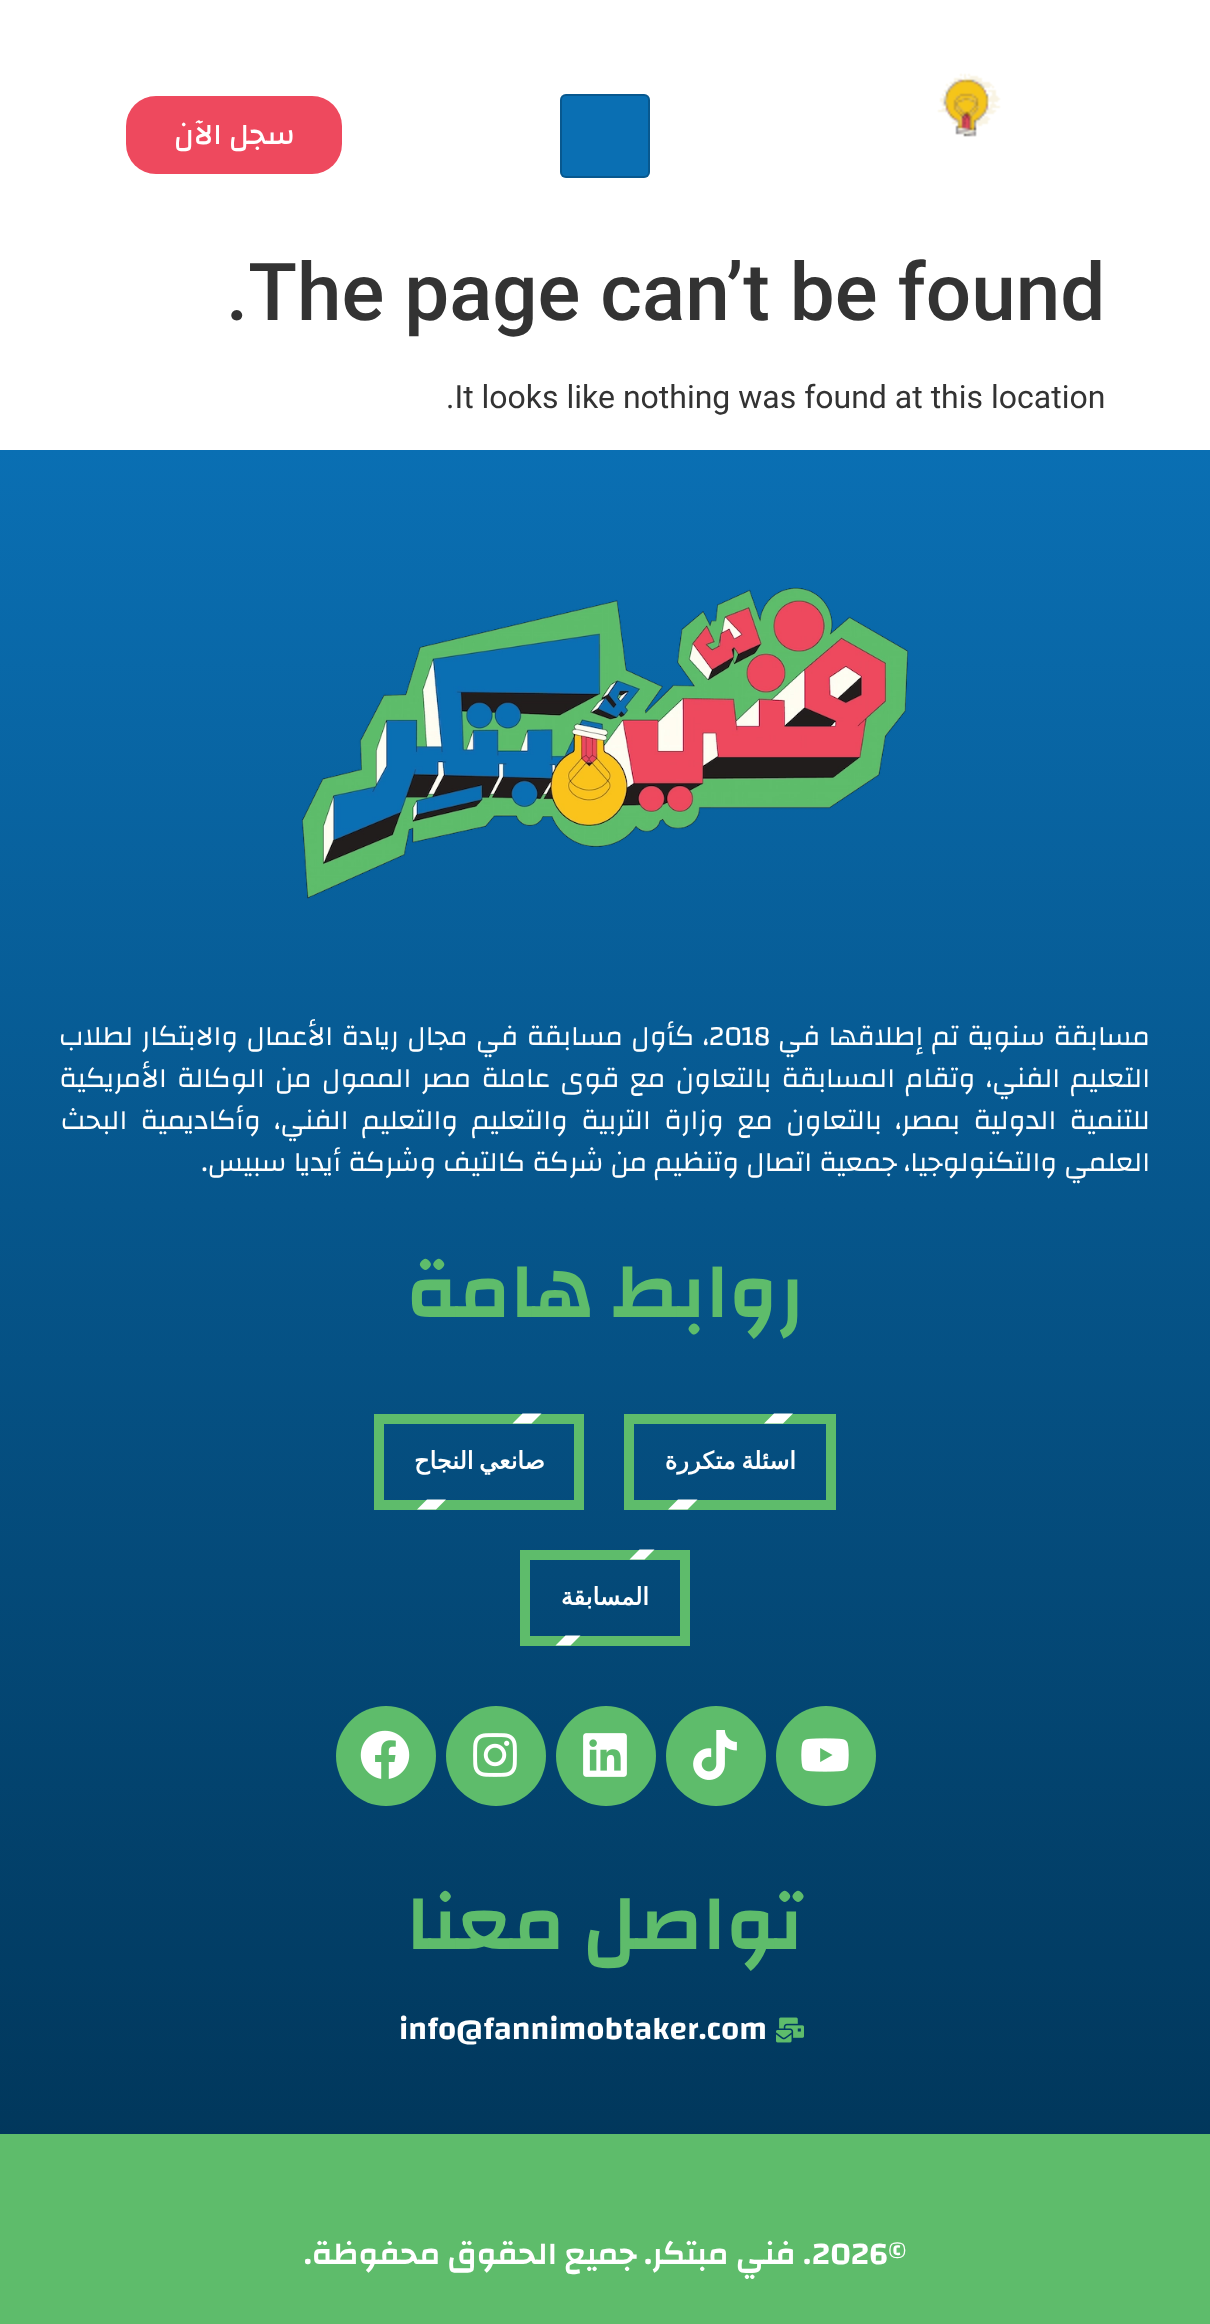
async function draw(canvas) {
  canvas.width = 1210;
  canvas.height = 2324;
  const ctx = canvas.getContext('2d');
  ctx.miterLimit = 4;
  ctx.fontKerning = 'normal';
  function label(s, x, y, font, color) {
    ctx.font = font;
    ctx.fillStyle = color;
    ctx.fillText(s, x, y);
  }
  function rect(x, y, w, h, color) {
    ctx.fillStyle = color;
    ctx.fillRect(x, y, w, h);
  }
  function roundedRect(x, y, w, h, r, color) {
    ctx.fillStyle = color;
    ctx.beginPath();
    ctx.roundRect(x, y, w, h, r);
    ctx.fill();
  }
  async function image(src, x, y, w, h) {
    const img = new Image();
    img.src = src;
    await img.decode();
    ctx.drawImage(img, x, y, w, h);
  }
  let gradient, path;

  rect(0, 0, 1210, 2324, '#fff');
  await image('assets/img1.png', 937, 73, 64, 64);
  roundedRect(560, 94, 90, 84, 6, '#0a6fb3');
  ctx.beginPath();
  ctx.roundRect(561, 95, 88, 82, 5);
  ctx.strokeStyle = '#00000033';
  ctx.lineWidth = 2;
  ctx.stroke();
  roundedRect(126, 96, 216, 78, 30, '#ee495e');
  ctx.direction = 'rtl';
  label('سجل الآن', 295, 144, '500 30px Changa', '#fff');
  ctx.direction = 'ltr';
  label('.The page can’t be found', 226, 320, '500 80px Roboto', '#333');
  label('.It looks like nothing was found at this location', 446, 408, '32px Roboto', '#333');
  gradient = ctx.createLinearGradient(605, 450, 605, 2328);
  gradient.addColorStop(0, '#0a6fb3');
  gradient.addColorStop(1, '#003152');
  ctx.fillStyle = gradient;
  ctx.fillRect(0, 450, 1210, 1684);
  await image('assets/img2.png', 301, 587, 608, 312);
  ctx.wordSpacing = '1.25px';
  ctx.direction = 'rtl';
  label('مسابقة سنوية تم إطلاقها في', 1150, 1045, '28px Changa', '#fff');
  ctx.wordSpacing = '0px';
  ctx.direction = 'ltr';
  label('2018', 709, 1045, '28px Changa', '#fff');
  ctx.wordSpacing = '1.25px';
  ctx.direction = 'rtl';
  label('، كأول مسابقة في مجال ريادة الأعمال والابتكار لطلاب', 709, 1045, '28px Changa', '#fff');
  ctx.wordSpacing = '3.25px';
  label('التعليم الفني، وتقام المسابقة بالتعاون مع قوى عاملة مصر الممول من الوكالة الأمريكية', 1150, 1087, '28px Changa', '#fff');
  ctx.wordSpacing = '6.25px';
  label('للتنمية الدولية بمصر، بالتعاون مع وزارة التربية والتعليم والتعليم الفني، وأكاديمية البحث', 1150, 1129, '28px Changa', '#fff');
  ctx.wordSpacing = '0px';
  label('العلمي والتكنولوجيا، جمعية اتصال وتنظيم من شركة كالتيف وشركة أيديا سبيس.', 1150, 1171, '28px Changa', '#fff');
  label('روابط هامة', 804, 1317, '600 80px Changa', '#5ebc6b');
  ctx.strokeStyle = '#5ebc6b';
  ctx.lineWidth = 10;
  ctx.strokeRect(629, 1419, 202, 86);
  ctx.fillStyle = '#fff';
  path = new Path2D('M774 1413.5H793L783 1423.5H764Z');
  ctx.fill(path);
  ctx.wordSpacing = '-2px';
  label('اسئلة متكررة', 796, 1469, 'bold 24px DejaVu Sans', '#fff');
  path = new Path2D('M678 1499.5H697.5L687.5 1509.5H668Z');
  ctx.fill(path);
  ctx.strokeRect(379, 1419, 200, 86);
  path = new Path2D('M522.5 1413.5H541.5L531.5 1423.5H512.5Z');
  ctx.fill(path);
  label('صانعي النجاح', 545, 1469, 'bold 24px DejaVu Sans', '#fff');
  path = new Path2D('M427 1499.5H446L436 1509.5H417Z');
  ctx.fill(path);
  ctx.strokeRect(525, 1555, 160, 86);
  path = new Path2D('M639.5 1549.5H654.5L644.5 1559.5H629.5Z');
  ctx.fill(path);
  ctx.wordSpacing = '0px';
  label('المسابقة', 649, 1605, 'bold 24px DejaVu Sans', '#fff');
  path = new Path2D('M565.5 1635.5H580.5L570.5 1645.5H555.5Z');
  ctx.fill(path);
  ctx.fillStyle = '#5ebc6b';
  ctx.beginPath();
  ctx.arc(826, 1756, 50, 0, 2 * Math.PI);
  ctx.fill();
  await image('assets/img3.png', 801, 1738, 48, 34);
  ctx.beginPath();
  ctx.arc(716, 1756, 50, 0, 2 * Math.PI);
  ctx.fill();
  await image('assets/img4.png', 693, 1730, 44, 50);
  ctx.beginPath();
  ctx.arc(606, 1756, 50, 0, 2 * Math.PI);
  ctx.fill();
  await image('assets/img5.png', 583, 1733, 44, 44);
  ctx.beginPath();
  ctx.arc(496, 1756, 50, 0, 2 * Math.PI);
  ctx.fill();
  await image('assets/img6.png', 473, 1733, 44, 44);
  ctx.beginPath();
  ctx.arc(386, 1756, 50, 0, 2 * Math.PI);
  ctx.fill();
  await image('assets/img7.png', 360, 1730, 50, 49);
  label('تواصل معنا', 803, 1949, '600 80px Changa', '#5ebc6b');
  await image('assets/img8.png', 776, 2017, 28, 26);
  ctx.direction = 'ltr';
  label('info@fannimobtaker.com', 399, 2039, '600 32px Changa', '#fff');
  rect(0, 2134, 1210, 190, '#5ebc6b');
  label('2026©', 812, 2264, '600 32px Changa', '#fff');
  ctx.direction = 'rtl';
  label('. فني مبتكر. جميع الحقوق محفوظة.', 811, 2264, '600 32px Changa', '#fff');
}

draw(document.querySelector('canvas'));
